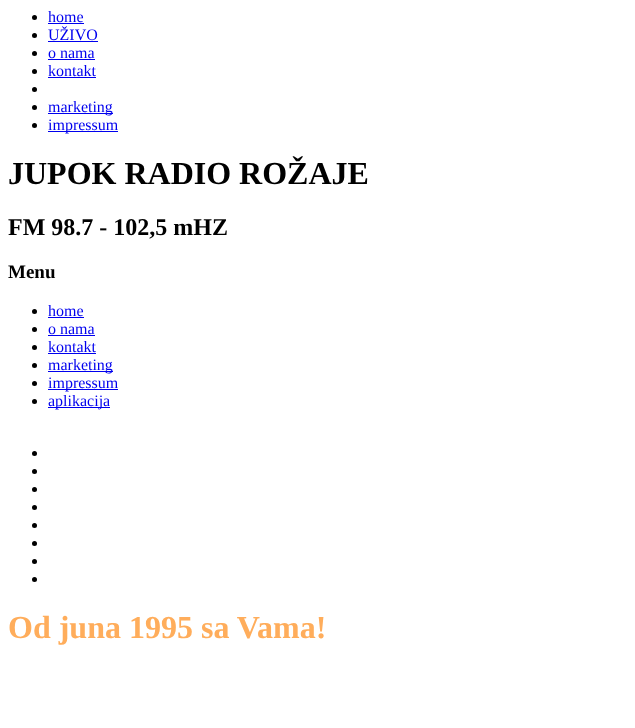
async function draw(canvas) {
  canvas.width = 635;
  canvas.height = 728;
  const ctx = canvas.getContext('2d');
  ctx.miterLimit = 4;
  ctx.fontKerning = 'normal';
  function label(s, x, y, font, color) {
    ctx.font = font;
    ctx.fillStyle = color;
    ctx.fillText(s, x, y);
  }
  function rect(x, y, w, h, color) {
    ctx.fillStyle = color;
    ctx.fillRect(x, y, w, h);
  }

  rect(0, 0, 635, 728, '#fff');
  ctx.fillStyle = '#000';
  ctx.beginPath();
  ctx.arc(34.5, 17.5, 2.5, 0, 2 * Math.PI);
  ctx.fill();
  label('home', 48, 22, '16px Liberation Serif', '#00e');
  rect(48, 23, 36, 1, '#00e');
  ctx.fillStyle = '#000';
  ctx.beginPath();
  ctx.arc(34.5, 35.5, 2.5, 0, 2 * Math.PI);
  ctx.fill();
  label('UŽIVO', 48, 40, '16px Liberation Serif', '#00e');
  rect(48, 41, 50, 1, '#00e');
  ctx.fillStyle = '#000';
  ctx.beginPath();
  ctx.arc(34.5, 53.5, 2.5, 0, 2 * Math.PI);
  ctx.fill();
  label('o nama', 48, 58, '16px Liberation Serif', '#00e');
  rect(48, 59, 47, 1, '#00e');
  ctx.fillStyle = '#000';
  ctx.beginPath();
  ctx.arc(34.5, 71.5, 2.5, 0, 2 * Math.PI);
  ctx.fill();
  label('kontakt', 48, 76, '16px Liberation Serif', '#00e');
  rect(48, 77, 48, 1, '#00e');
  ctx.fillStyle = '#000';
  ctx.beginPath();
  ctx.arc(34.5, 89.5, 2.5, 0, 2 * Math.PI);
  ctx.fill();
  ctx.beginPath();
  ctx.arc(34.5, 107.5, 2.5, 0, 2 * Math.PI);
  ctx.fill();
  rect(48, 113, 65, 1, '#00e');
  label('marketing', 48, 112, '16px Liberation Serif', '#00e');
  ctx.fillStyle = '#000';
  ctx.beginPath();
  ctx.arc(34.5, 125.5, 2.5, 0, 2 * Math.PI);
  ctx.fill();
  rect(48, 131, 70, 1, '#00e');
  label('impressum', 48, 130, '16px Liberation Serif', '#00e');
  label('JUPOK RADIO ROŽAJE', 8, 184, 'bold 32px Liberation Serif', '#000');
  label('FM 98.7 - 102,5 mHZ', 8, 235, 'bold 24px Liberation Serif', '#000');
  label('Menu', 8, 278, 'bold 19px Liberation Serif', '#000');
  ctx.beginPath();
  ctx.arc(34.5, 311.5, 2.5, 0, 2 * Math.PI);
  ctx.fill();
  label('home', 48, 316, '16px Liberation Serif', '#00e');
  rect(48, 317, 36, 1, '#00e');
  ctx.fillStyle = '#000';
  ctx.beginPath();
  ctx.arc(34.5, 329.5, 2.5, 0, 2 * Math.PI);
  ctx.fill();
  label('o nama', 48, 334, '16px Liberation Serif', '#00e');
  rect(48, 335, 47, 1, '#00e');
  ctx.fillStyle = '#000';
  ctx.beginPath();
  ctx.arc(34.5, 347.5, 2.5, 0, 2 * Math.PI);
  ctx.fill();
  label('kontakt', 48, 352, '16px Liberation Serif', '#00e');
  rect(48, 353, 48, 1, '#00e');
  ctx.fillStyle = '#000';
  ctx.beginPath();
  ctx.arc(34.5, 365.5, 2.5, 0, 2 * Math.PI);
  ctx.fill();
  rect(48, 371, 65, 1, '#00e');
  label('marketing', 48, 370, '16px Liberation Serif', '#00e');
  ctx.fillStyle = '#000';
  ctx.beginPath();
  ctx.arc(34.5, 383.5, 2.5, 0, 2 * Math.PI);
  ctx.fill();
  rect(48, 389, 70, 1, '#00e');
  label('impressum', 48, 388, '16px Liberation Serif', '#00e');
  ctx.fillStyle = '#000';
  ctx.beginPath();
  ctx.arc(34.5, 401.5, 2.5, 0, 2 * Math.PI);
  ctx.fill();
  rect(48, 407, 62, 1, '#00e');
  label('aplikacija', 48, 406, '16px Liberation Serif', '#00e');
  ctx.fillStyle = '#000';
  ctx.beginPath();
  ctx.arc(34.5, 453.5, 2.5, 0, 2 * Math.PI);
  ctx.fill();
  ctx.beginPath();
  ctx.arc(34.5, 471.5, 2.5, 0, 2 * Math.PI);
  ctx.fill();
  ctx.beginPath();
  ctx.arc(34.5, 489.5, 2.5, 0, 2 * Math.PI);
  ctx.fill();
  ctx.beginPath();
  ctx.arc(34.5, 507.5, 2.5, 0, 2 * Math.PI);
  ctx.fill();
  ctx.beginPath();
  ctx.arc(34.5, 525.5, 2.5, 0, 2 * Math.PI);
  ctx.fill();
  ctx.beginPath();
  ctx.arc(34.5, 543.5, 2.5, 0, 2 * Math.PI);
  ctx.fill();
  ctx.beginPath();
  ctx.arc(34.5, 561.5, 2.5, 0, 2 * Math.PI);
  ctx.fill();
  ctx.beginPath();
  ctx.arc(34.5, 579.5, 2.5, 0, 2 * Math.PI);
  ctx.fill();
  label('Od juna 1995 sa Vama!', 8, 638, 'bold 32px Liberation Serif', '#ffad5b');
}

draw(document.querySelector('canvas'));
